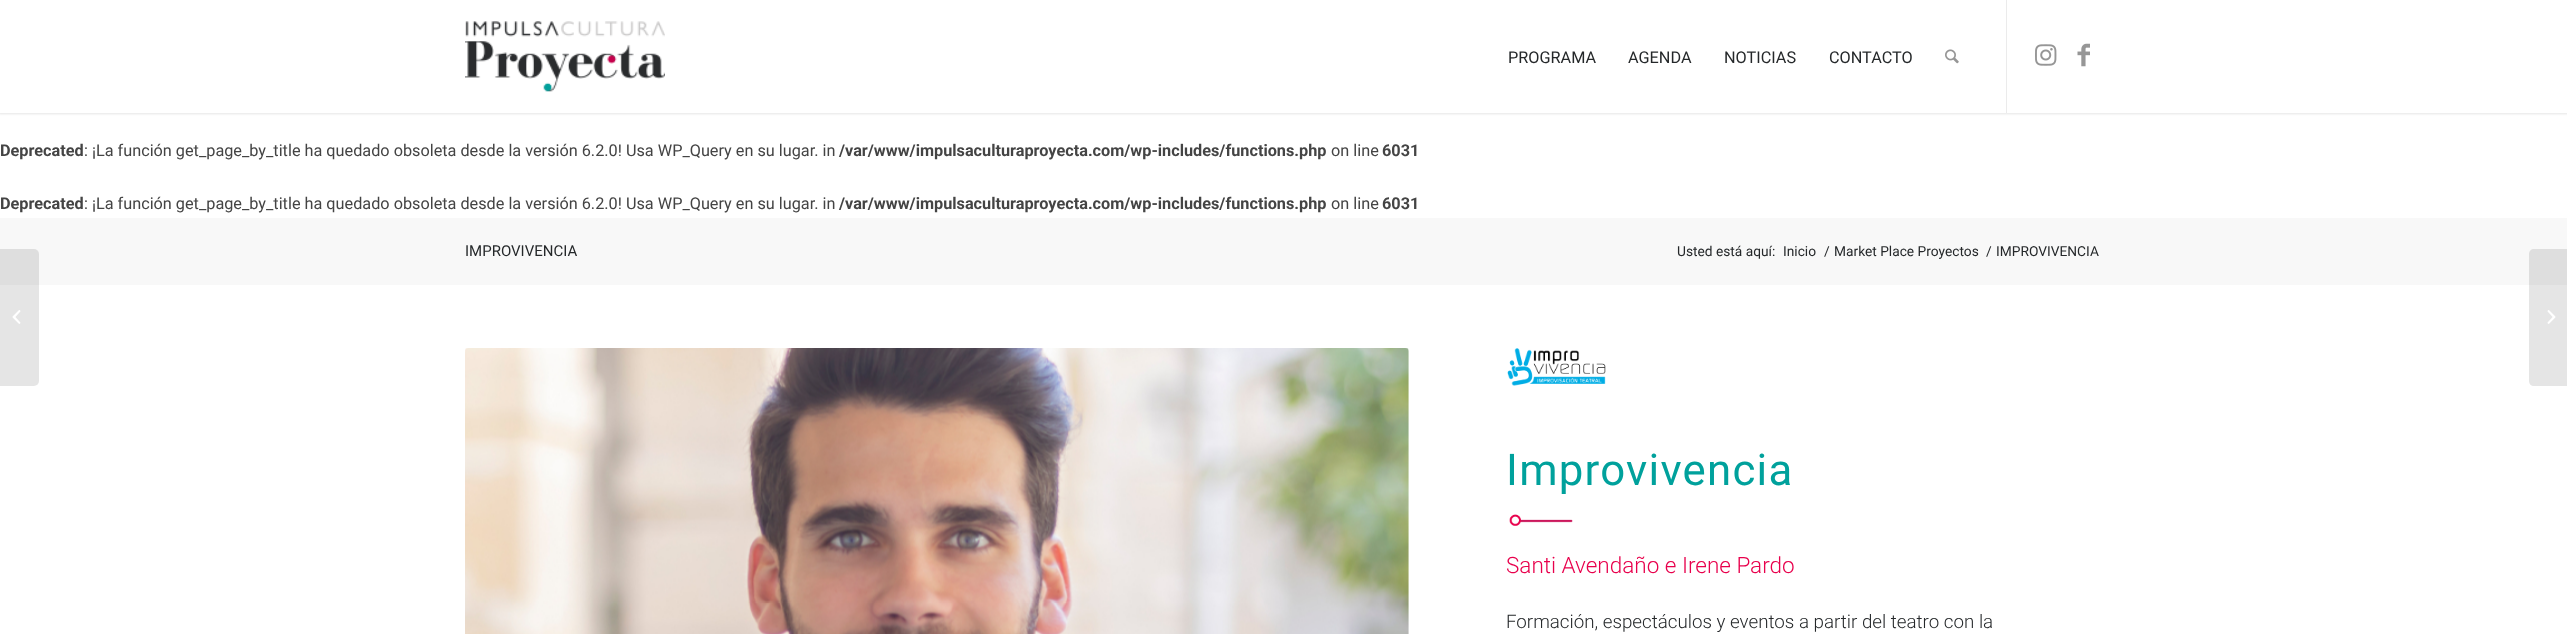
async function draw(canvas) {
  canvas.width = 2567;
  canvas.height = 634;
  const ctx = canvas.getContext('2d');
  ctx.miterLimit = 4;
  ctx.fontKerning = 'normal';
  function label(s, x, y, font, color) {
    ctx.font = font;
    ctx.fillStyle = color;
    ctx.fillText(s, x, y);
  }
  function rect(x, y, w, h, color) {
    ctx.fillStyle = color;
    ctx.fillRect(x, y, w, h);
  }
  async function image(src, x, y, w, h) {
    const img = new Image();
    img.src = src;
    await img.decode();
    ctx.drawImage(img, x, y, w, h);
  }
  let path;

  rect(0, 0, 2567, 634, '#fff');
  ctx.fillStyle = '#0000001a';
  ctx.filter = 'blur(1px)';
  ctx.beginPath();
  ctx.rect(-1, -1, 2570, 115);
  ctx.fill();
  ctx.filter = 'none';
  rect(0, 0, 2567, 113, '#fff');
  await image('assets/img1.png', 465, 21, 200, 71);
  rect(2006, 0, 1, 113, '#ebebeb');
  label('PROGRAMA', 1508, 63, '16.25px Roboto', '#25282a');
  label('AGENDA', 1628, 63, '16.25px Roboto', '#25282a');
  label('NOTICIAS', 1724, 63, '16.25px Roboto', '#25282a');
  label('CONTACTO', 1829, 63, '16.25px Roboto', '#25282a');
  await image('assets/img2.png', 1945, 49, 14, 15);
  await image('assets/img3.png', 2035, 44, 22, 22);
  await image('assets/img4.png', 2077, 43, 13, 24);
  label('Deprecated', 0, 156, 'bold 16.25px Roboto', '#444');
  label(': ¡La función get_page_by_title ha quedado obsoleta desde la versión 6.2.0! Usa WP_Query en su lugar. in', 84, 156, '16.25px Roboto', '#444');
  label('/var/www/impulsaculturaproyecta.com/wp-includes/functions.php', 839, 156, 'bold 16.25px Roboto', '#444');
  label('on line', 1331, 156, '16.25px Roboto', '#444');
  label('6031', 1382, 156, 'bold 16.25px Roboto', '#444');
  label('Deprecated', 0, 209, 'bold 16.25px Roboto', '#444');
  label(': ¡La función get_page_by_title ha quedado obsoleta desde la versión 6.2.0! Usa WP_Query en su lugar. in', 84, 209, '16.25px Roboto', '#444');
  label('/var/www/impulsaculturaproyecta.com/wp-includes/functions.php', 839, 209, 'bold 16.25px Roboto', '#444');
  label('on line', 1331, 209, '16.25px Roboto', '#444');
  label('6031', 1382, 209, 'bold 16.25px Roboto', '#444');
  rect(0, 218, 2567, 67, '#f8f8f8');
  label('IMPROVIVENCIA', 465, 256, '15px Roboto', '#25282a');
  label('Usted está aquí:', 1677, 256, '13.75px Roboto', '#25282a');
  label('Inicio', 1783, 256, '13.75px Roboto', '#25282a');
  label('/', 1824, 256, '13.75px Roboto', '#25282a');
  label('Market Place Proyectos', 1834, 256, '13.75px Roboto', '#25282a');
  label('/', 1986, 256, '13.75px Roboto', '#25282a');
  label('IMPROVIVENCIA', 1996, 256, '13.75px Roboto', '#25282a');
  await image('assets/img5.png', 465, 348, 944, 286);
  await image('assets/img6.png', 1507, 348, 99, 38);
  ctx.letterSpacing = '1.25px';
  label('Improvivencia', 1506, 485, '43.75px Roboto', '#00a19c');
  await image('assets/img7.png', 1509, 514, 64, 12);
  ctx.letterSpacing = '0px';
  label('Santi Avendaño e Irene Pardo', 1506, 573, '300 22.5px Roboto', '#e8004c');
  label('Formación, espectáculos y eventos a partir del teatro con la', 1506, 628, '300 18.75px Roboto', '#25282a');
  ctx.fillStyle = '#0000001a';
  ctx.beginPath();
  ctx.roundRect(0, 249, 39, 137, [0, 5, 5, 0]);
  ctx.fill();
  await image('assets/img8.png', 12, 310, 9, 14);
  path = new Path2D('M2534 249H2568V386H2534C2531 386 2529 384 2529 381V254C2529 251 2531 249 2534 249Z');
  ctx.fill(path);
  await image('assets/img9.png', 2547, 310, 9, 14);
}

draw(document.querySelector('canvas'));
